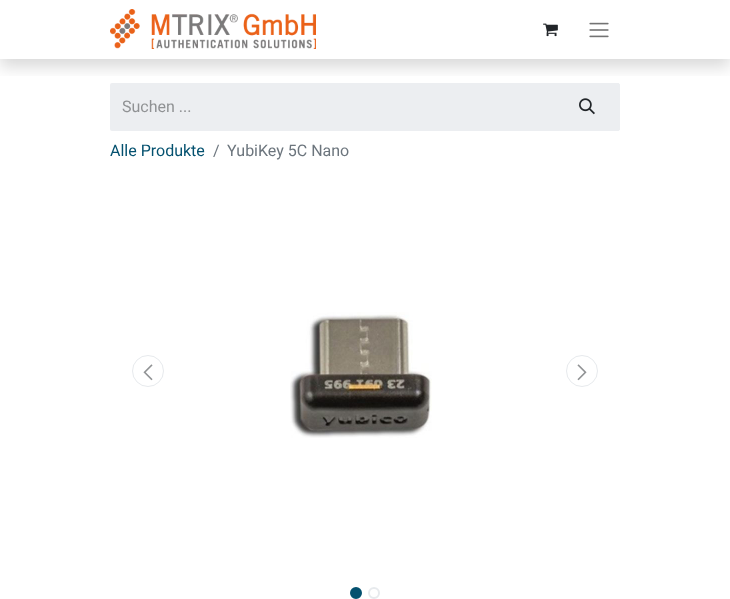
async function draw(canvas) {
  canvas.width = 730;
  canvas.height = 599;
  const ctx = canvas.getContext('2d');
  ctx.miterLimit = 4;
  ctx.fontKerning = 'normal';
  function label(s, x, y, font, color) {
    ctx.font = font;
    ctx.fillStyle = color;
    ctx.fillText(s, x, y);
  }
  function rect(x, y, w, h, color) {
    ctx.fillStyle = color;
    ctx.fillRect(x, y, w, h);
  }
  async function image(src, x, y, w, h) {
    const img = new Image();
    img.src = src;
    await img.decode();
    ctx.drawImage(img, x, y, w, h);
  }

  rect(0, 0, 730, 599, '#fff');
  ctx.fillStyle = '#eceef1';
  ctx.beginPath();
  ctx.roundRect(110, 83, 445, 48, [2, 0, 0, 2]);
  ctx.fill();
  ctx.beginPath();
  ctx.roundRect(554.5, 83.5, 65, 47, [0, 1.5, 1.5, 0]);
  ctx.fill();
  ctx.strokeStyle = '#eceef1';
  ctx.stroke();
  ctx.save();
  ctx.beginPath();
  ctx.rect(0, 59, 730, 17);
  ctx.clip();
  ctx.fillStyle = '#00000026';
  ctx.filter = 'blur(8px)';
  ctx.beginPath();
  ctx.rect(0, 8, 730, 59);
  ctx.fill();
  ctx.filter = 'none';
  ctx.restore();
  await image('assets/img1.png', 110, 9, 206, 40);
  await image('assets/img2.png', 543, 23, 15, 14);
  await image('assets/img3.png', 589, 22, 20, 16);
  label('Suchen ...', 122, 112, '16px Roboto', '#909294');
  await image('assets/img4.png', 579, 98, 16, 17);
  label('Alle Produkte', 110, 156, '16px Roboto', '#04516f');
  label('/', 213, 156, '16px Roboto', '#6c757d');
  label('YubiKey 5C Nano', 227, 156, '16px Roboto', '#6c757d');
  ctx.beginPath();
  ctx.arc(148, 371, 15.5, 0, 2 * Math.PI);
  ctx.strokeStyle = '#e7eaed';
  ctx.stroke();
  await image('assets/img5.png', 143, 364, 10, 17);
  await image('assets/img6.png', 290, 312, 142, 126);
  ctx.beginPath();
  ctx.arc(582, 371, 15.5, 0, 2 * Math.PI);
  ctx.stroke();
  await image('assets/img7.png', 577, 364, 10, 17);
  ctx.fillStyle = '#04516f';
  ctx.beginPath();
  ctx.arc(356, 593, 5, 0, 2 * Math.PI);
  ctx.fill();
  ctx.strokeStyle = '#04516f';
  ctx.lineWidth = 2;
  ctx.stroke();
  ctx.beginPath();
  ctx.arc(374, 593, 5, 0, 2 * Math.PI);
  ctx.strokeStyle = '#e7eaed';
  ctx.stroke();
}

draw(document.querySelector('canvas'));
